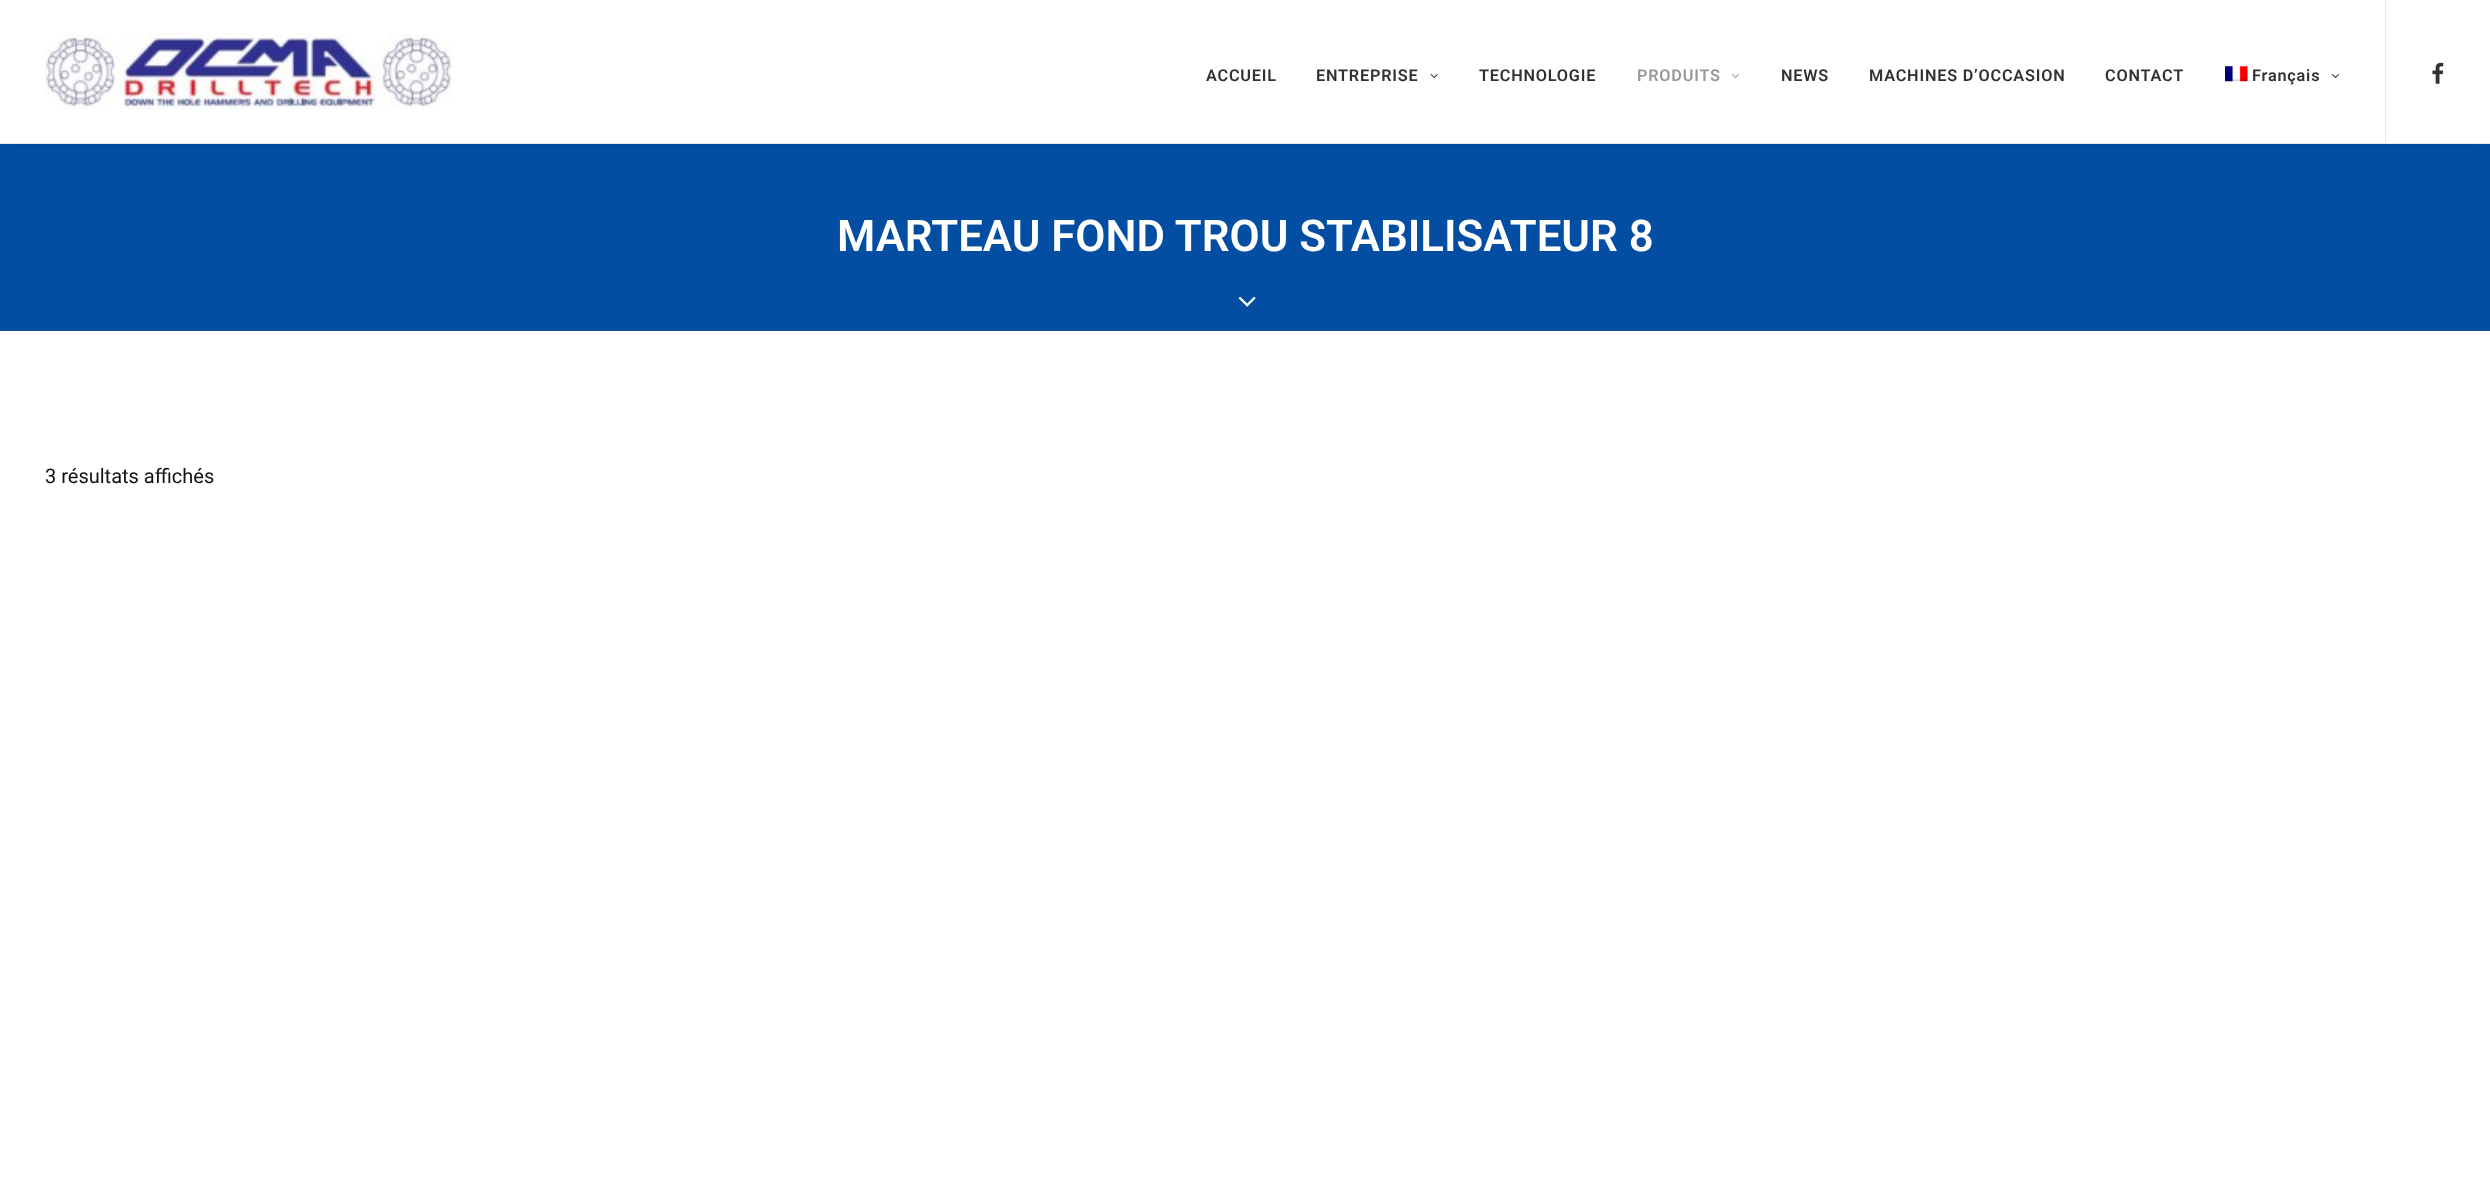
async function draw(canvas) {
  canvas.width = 2490;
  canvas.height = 1190;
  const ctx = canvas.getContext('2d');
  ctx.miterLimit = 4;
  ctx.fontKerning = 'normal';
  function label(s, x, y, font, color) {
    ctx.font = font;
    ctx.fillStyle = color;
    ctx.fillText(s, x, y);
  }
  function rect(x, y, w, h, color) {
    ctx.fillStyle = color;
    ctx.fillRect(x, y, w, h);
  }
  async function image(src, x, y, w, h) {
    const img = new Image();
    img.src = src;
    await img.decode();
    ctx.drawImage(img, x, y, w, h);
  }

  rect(0, 0, 2490, 1190, '#034ea2');
  ctx.fillStyle = '#00000099';
  ctx.filter = 'blur(6px)';
  ctx.beginPath();
  ctx.rect(13, 18, 2465, 118);
  ctx.fill();
  ctx.filter = 'none';
  rect(0, 0, 2490, 143, '#fff');
  rect(0, 143, 2490, 1, '#eaeaea');
  await image('assets/img1.png', 45, 34, 408, 75);
  ctx.letterSpacing = '0.8px';
  label('ACCUEIL', 1206, 81, '600 16.25px Roboto', '#303133');
  label('ENTREPRISE', 1316, 81, '600 16.25px Roboto', '#303133');
  await image('assets/img2.png', 1430, 74, 8, 5);
  label('TECHNOLOGIE', 1479, 81, '600 16.25px Roboto', '#303133');
  label('PRODUITS', 1637, 81, '600 16.25px Roboto', '#989899');
  await image('assets/img3.png', 1731, 74, 8, 5);
  label('NEWS', 1781, 81, '600 16.25px Roboto', '#303133');
  label('MACHINES D’OCCASION', 1869, 81, '600 16.25px Roboto', '#303133');
  label('CONTACT', 2105, 81, '600 16.25px Roboto', '#303133');
  await image('assets/img4.png', 2225, 66, 23, 16);
  label('Français', 2252, 81, '600 16.25px Roboto', '#303133');
  await image('assets/img5.png', 2331, 74, 8, 5);
  rect(2385, 0, 1, 143, '#eaeaea');
  await image('assets/img6.png', 2432, 62, 12, 22);
  ctx.letterSpacing = '0px';
  label('MARTEAU FOND TROU STABILISATEUR 8', 837, 251, '600 43.75px Roboto', '#fff');
  await image('assets/img7.png', 1238, 296, 18, 11);
  rect(0, 331, 2490, 859, '#fff');
  label('3 résultats affichés', 45, 483, '20px Roboto', '#101213');
}

draw(document.querySelector('canvas'));
